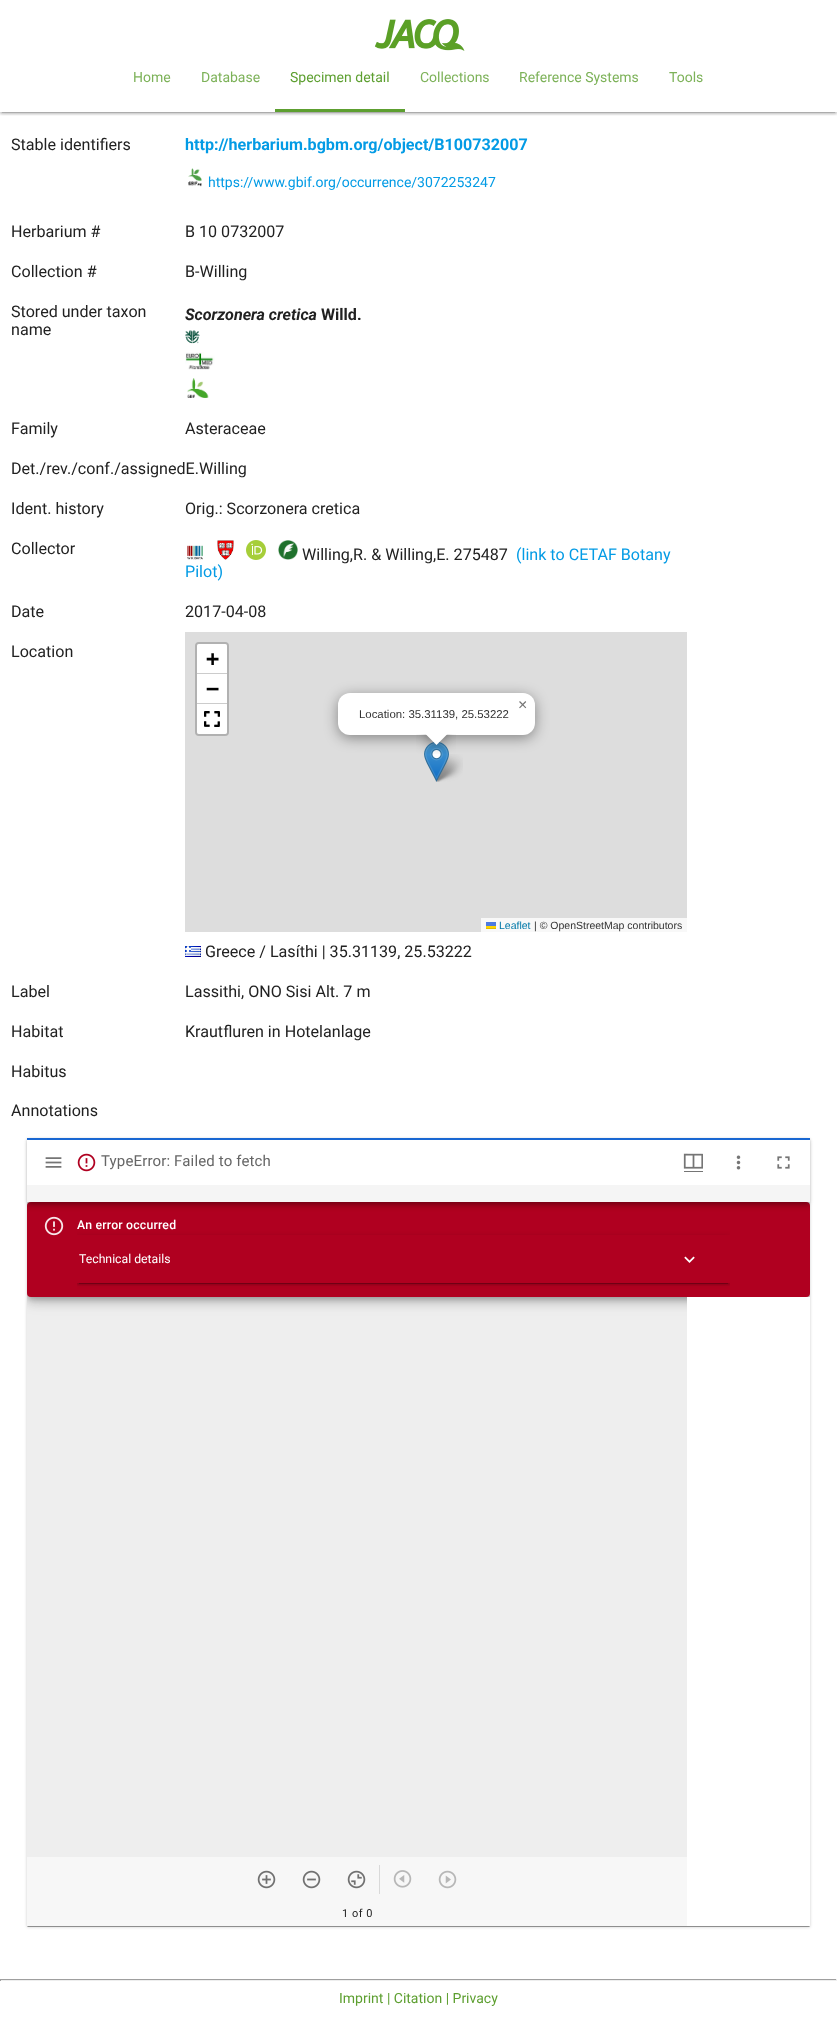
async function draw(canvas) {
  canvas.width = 837;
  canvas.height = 2029;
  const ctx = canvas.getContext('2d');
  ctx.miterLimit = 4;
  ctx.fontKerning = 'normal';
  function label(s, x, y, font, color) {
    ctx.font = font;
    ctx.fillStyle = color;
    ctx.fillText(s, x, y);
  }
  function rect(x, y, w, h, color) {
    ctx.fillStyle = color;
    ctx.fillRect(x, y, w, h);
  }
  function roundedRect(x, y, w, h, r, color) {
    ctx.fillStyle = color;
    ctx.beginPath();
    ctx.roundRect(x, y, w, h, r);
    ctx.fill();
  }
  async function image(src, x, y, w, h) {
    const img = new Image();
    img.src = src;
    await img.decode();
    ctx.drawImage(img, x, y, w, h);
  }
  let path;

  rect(0, 0, 837, 2029, '#fff');
  ctx.save();
  ctx.beginPath();
  ctx.rect(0, 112, 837, 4);
  ctx.clip();
  ctx.fillStyle = '#00000033';
  ctx.filter = 'blur(2.5px)';
  ctx.beginPath();
  ctx.rect(0, 1, 837, 112);
  ctx.fill();
  ctx.filter = 'none';
  ctx.restore();
  ctx.save();
  ctx.beginPath();
  ctx.rect(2, 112, 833, 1);
  ctx.clip();
  ctx.fillStyle = '#0000001f';
  ctx.filter = 'blur(0.5px)';
  ctx.beginPath();
  ctx.rect(2, 5, 833, 108);
  ctx.fill();
  ctx.filter = 'none';
  ctx.restore();
  ctx.save();
  ctx.beginPath();
  ctx.rect(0, 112, 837, 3);
  ctx.clip();
  ctx.fillStyle = '#00000024';
  ctx.filter = 'blur(1px)';
  ctx.beginPath();
  ctx.rect(0, 2, 837, 112);
  ctx.fill();
  ctx.filter = 'none';
  ctx.restore();
  await image('assets/img1.png', 374, 19, 91, 32);
  label('Home', 133, 82, '14px Roboto', '#7db259');
  label('Database', 201, 82, '14px Roboto', '#7db259');
  rect(275, 109, 130, 3, '#5d9f30');
  label('Specimen detail', 290, 82, '14px Roboto', '#5d9f30');
  label('Collections', 420, 82, '14px Roboto', '#7db259');
  label('Reference Systems', 519, 82, '14px Roboto', '#7db259');
  label('Tools', 669, 82, '14px Roboto', '#7db259');
  label('Stable identifiers', 11, 150, '16.1px Roboto', '#212121');
  label('http://herbarium.bgbm.org/object/B100732007', 185, 150, 'bold 16.1px Roboto', '#039be5');
  await image('assets/img2.png', 188, 168, 14, 19);
  label('https://www.gbif.org/occurrence/3072253247', 208, 187, '14px Roboto', '#039be5');
  label('Herbarium #', 11, 237, '16.1px Roboto', '#212121');
  label('B 10 0732007', 185, 237, '16.1px Roboto', '#212121');
  label('Collection #', 11, 277, '16.1px Roboto', '#212121');
  label('B-Willing', 185, 277, '16.1px Roboto', '#212121');
  label('Stored under taxon', 11, 317, '16.1px Roboto', '#212121');
  label('name', 11, 335, '16.1px Roboto', '#212121');
  label('Scorzonera cretica', 185, 320, 'italic bold 16.1px Roboto', '#212121');
  label('Willd.', 321, 320, 'bold 16.1px Roboto', '#212121');
  await image('assets/img3.png', 185, 330, 15, 14);
  await image('assets/img4.png', 185, 352, 30, 18);
  await image('assets/img5.png', 187, 378, 22, 20);
  label('Family', 11, 434, '16.1px Roboto', '#212121');
  label('Asteraceae', 185, 434, '16.1px Roboto', '#212121');
  label('Det./rev./conf./assignedE.Willing', 11, 474, '16.1px Roboto', '#212121');
  label('Ident. history', 11, 514, '16.1px Roboto', '#212121');
  label('Orig.: Scorzonera cretica', 185, 514, '16.1px Roboto', '#212121');
  label('Collector', 11, 554, '16.1px Roboto', '#212121');
  await image('assets/img6.png', 187, 545, 16, 15);
  await image('assets/img7.png', 217, 540, 17, 20);
  await image('assets/img8.png', 246, 540, 20, 20);
  await image('assets/img9.png', 278, 540, 20, 20);
  label('Willing,R. & Willing,E. 275487', 302, 560, '16.1px Roboto', '#212121');
  label('(link to CETAF Botany', 516, 560, '16.1px Roboto', '#039be5');
  label('Pilot)', 185, 577, '16.1px Roboto', '#039be5');
  label('Date', 11, 617, '16.1px Roboto', '#212121');
  label('2017-04-08', 185, 617, '16.1px Roboto', '#212121');
  label('Location', 11, 657, '16.1px Roboto', '#212121');
  rect(185, 632, 502, 300, '#ddd');
  ctx.beginPath();
  ctx.roundRect(196, 643, 32, 92, 3);
  ctx.strokeStyle = '#b1b1b1';
  ctx.lineWidth = 2;
  ctx.stroke();
  ctx.fillStyle = '#fff';
  ctx.beginPath();
  ctx.roundRect(197, 644, 30, 30, [2, 2, 0, 0]);
  ctx.fill();
  rect(197, 673, 30, 1, '#ccc');
  label('+', 206, 666, 'bold 22px DejaVu Sans Mono', '#000');
  rect(197, 674, 30, 29, '#fff');
  rect(197, 703, 30, 1, '#ccc');
  label('−', 206, 696, 'bold 22px DejaVu Sans Mono', '#000');
  ctx.fillStyle = '#fff';
  ctx.beginPath();
  ctx.roundRect(197, 704, 30, 30, [0, 0, 2, 2]);
  ctx.fill();
  await image('assets/img10.png', 204, 711, 16, 16);
  rect(481, 918, 206, 14, '#f8f8f8');
  label('Leaflet', 499, 929, '10.5px Liberation Sans', '#0078a8');
  rect(486, 922, 10, 4, '#4c7be1');
  rect(486, 926, 10, 2, '#ffd500');
  rect(486, 928, 10, 1, '#e0bc00');
  label('| © OpenStreetMap contributors', 534, 929, '10.5px Liberation Sans', '#333');
  await image('assets/img12.png', 434, 754, 29, 28);
  await image('assets/img11.png', 424, 742, 25, 40);
  ctx.fillStyle = '#00000066';
  ctx.filter = 'blur(7px)';
  ctx.beginPath();
  ctx.roundRect(338, 696, 197, 42, 12);
  ctx.fill();
  ctx.filter = 'none';
  roundedRect(338, 693, 197, 42, 12, '#fff');
  ctx.save();
  ctx.beginPath();
  ctx.rect(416, 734, 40, 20);
  ctx.clip();
  ctx.fillStyle = '#00000066';
  ctx.filter = 'blur(7px)';
  ctx.beginPath();
  ctx.rect(428, 727, 17, 17);
  ctx.fill();
  ctx.filter = 'none';
  ctx.restore();
  ctx.save();
  ctx.beginPath();
  ctx.rect(416, 734, 40, 20);
  ctx.clip();
  path = new Path2D('M436.5 721L448.5 733L436.5 745L424.5 733Z');
  ctx.fill(path);
  ctx.restore();
  label('×', 518, 710, '16px Liberation Sans', '#757575');
  label('Location: 35.31139, 25.53222', 359, 718, '11.4px Liberation Sans', '#333');
  await image('assets/img13.png', 185, 946, 16, 11);
  label('Greece / Lasíthi | 35.31139, 25.53222', 205, 957, '16.1px Roboto', '#212121');
  label('Label', 11, 997, '16.1px Roboto', '#212121');
  label('Lassithi, ONO Sisi Alt. 7 m', 185, 997, '16.1px Roboto', '#212121');
  label('Habitat', 11, 1037, '16.1px Roboto', '#212121');
  label('Krautfluren in Hotelanlage', 185, 1037, '16.1px Roboto', '#212121');
  label('Habitus', 11, 1077, '16.1px Roboto', '#212121');
  label('Annotations', 11, 1116, '16.1px Roboto', '#212121');
  ctx.fillStyle = '#00000033';
  ctx.filter = 'blur(0.5px)';
  ctx.beginPath();
  ctx.rect(28, 1141, 781, 786);
  ctx.fill();
  ctx.filter = 'none';
  ctx.filter = 'blur(0.5px)';
  ctx.beginPath();
  ctx.rect(27, 1139, 783, 788);
  ctx.fill();
  ctx.filter = 'none';
  ctx.filter = 'blur(1.5px)';
  ctx.beginPath();
  ctx.rect(27, 1139, 783, 788);
  ctx.fill();
  ctx.filter = 'none';
  rect(27, 1202, 783, 655, '#eee');
  ctx.save();
  ctx.beginPath();
  ctx.rect(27, 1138, 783, 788);
  ctx.clip();
  ctx.fillStyle = '#0000001f';
  ctx.filter = 'blur(9px)';
  ctx.beginPath();
  ctx.roundRect(27, 1203, 783, 95, 4);
  ctx.fill();
  ctx.filter = 'none';
  ctx.fillStyle = '#00000024';
  ctx.filter = 'blur(5px)';
  ctx.beginPath();
  ctx.roundRect(27, 1208, 783, 95, 4);
  ctx.fill();
  ctx.filter = 'none';
  ctx.fillStyle = '#00000033';
  ctx.filter = 'blur(2.5px)';
  ctx.beginPath();
  ctx.roundRect(28, 1206, 781, 93, 3);
  ctx.fill();
  ctx.filter = 'none';
  ctx.restore();
  roundedRect(27, 1202, 783, 95, 4, '#b00020');
  await image('assets/img19.png', 44, 1216, 20, 20);
  ctx.save();
  ctx.beginPath();
  ctx.rect(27, 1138, 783, 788);
  ctx.clip();
  ctx.fillStyle = '#0000001f';
  ctx.filter = 'blur(5px)';
  ctx.beginPath();
  ctx.rect(27, 1139, 783, 64);
  ctx.fill();
  ctx.filter = 'none';
  ctx.fillStyle = '#00000024';
  ctx.filter = 'blur(2.5px)';
  ctx.beginPath();
  ctx.rect(27, 1142, 783, 64);
  ctx.fill();
  ctx.filter = 'none';
  ctx.restore();
  ctx.fillStyle = '#00000033';
  ctx.filter = 'blur(2px)';
  ctx.beginPath();
  ctx.rect(28, 1141, 781, 62);
  ctx.fill();
  ctx.filter = 'none';
  rect(27, 1185, 783, 17, '#f5f5f5');
  rect(27, 1140, 783, 45, '#fff');
  rect(27, 1138, 783, 2, '#1967d2');
  await image('assets/img14.png', 45, 1157, 17, 11);
  await image('assets/img15.png', 77, 1153, 19, 19);
  ctx.letterSpacing = '0.15px';
  label('TypeError: Failed to fetch', 101, 1166, '15px Roboto', '#666');
  await image('assets/img16.png', 683, 1153, 20, 19);
  await image('assets/img17.png', 736, 1155, 5, 15);
  await image('assets/img18.png', 777, 1156, 13, 13);
  ctx.letterSpacing = '0.2px';
  label('An error occurred', 77, 1229, '500 12.25px Roboto', '#fff');
  ctx.save();
  ctx.beginPath();
  ctx.rect(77, 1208, 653, 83);
  ctx.clip();
  path = new Path2D('M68 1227H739V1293H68ZM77 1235H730V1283H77Z');
  ctx.clip(path, 'evenodd');
  ctx.fillStyle = '#0000001f';
  ctx.filter = 'blur(2.5px)';
  ctx.beginPath();
  ctx.rect(77, 1236, 653, 48);
  ctx.fill();
  ctx.filter = 'none';
  ctx.restore();
  ctx.save();
  ctx.beginPath();
  ctx.rect(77, 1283, 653, 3);
  ctx.clip();
  ctx.fillStyle = '#00000024';
  ctx.filter = 'blur(1px)';
  ctx.beginPath();
  ctx.rect(77, 1237, 653, 48);
  ctx.fill();
  ctx.filter = 'none';
  ctx.restore();
  ctx.save();
  ctx.beginPath();
  ctx.rect(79, 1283, 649, 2);
  ctx.clip();
  ctx.fillStyle = '#00000033';
  ctx.filter = 'blur(0.5px)';
  ctx.beginPath();
  ctx.rect(79, 1240, 649, 44);
  ctx.fill();
  ctx.filter = 'none';
  ctx.restore();
  ctx.letterSpacing = '0px';
  label('Technical details', 79, 1263, '12.25px Roboto', '#fff');
  await image('assets/img20.png', 684, 1256, 11, 7);
  rect(27, 1857, 660, 69, '#f7f7f7');
  await image('assets/img21.png', 257, 1870, 19, 19);
  await image('assets/img22.png', 302, 1870, 19, 19);
  await image('assets/img23.png', 347, 1870, 19, 19);
  rect(379, 1865, 1, 29, '#d9d9d9');
  await image('assets/img24.png', 393, 1870, 19, 18);
  await image('assets/img25.png', 438, 1870, 19, 19);
  ctx.letterSpacing = '0.5px';
  label('1 of 0', 342, 1917, '11px Roboto', '#212121');
  rect(687, 1297, 123, 629, '#fff');
  rect(0, 1979, 837, 1, '#9f9f9f');
  rect(836, 1979, 1, 2, '#eee');
  rect(0, 1980, 837, 1, '#eee');
  rect(0, 1979, 1, 2, '#9f9f9f');
  ctx.letterSpacing = '0px';
  label('Imprint | Citation | Privacy', 339, 2003, '14px Roboto', '#5d9f30');
}

draw(document.querySelector('canvas'));
